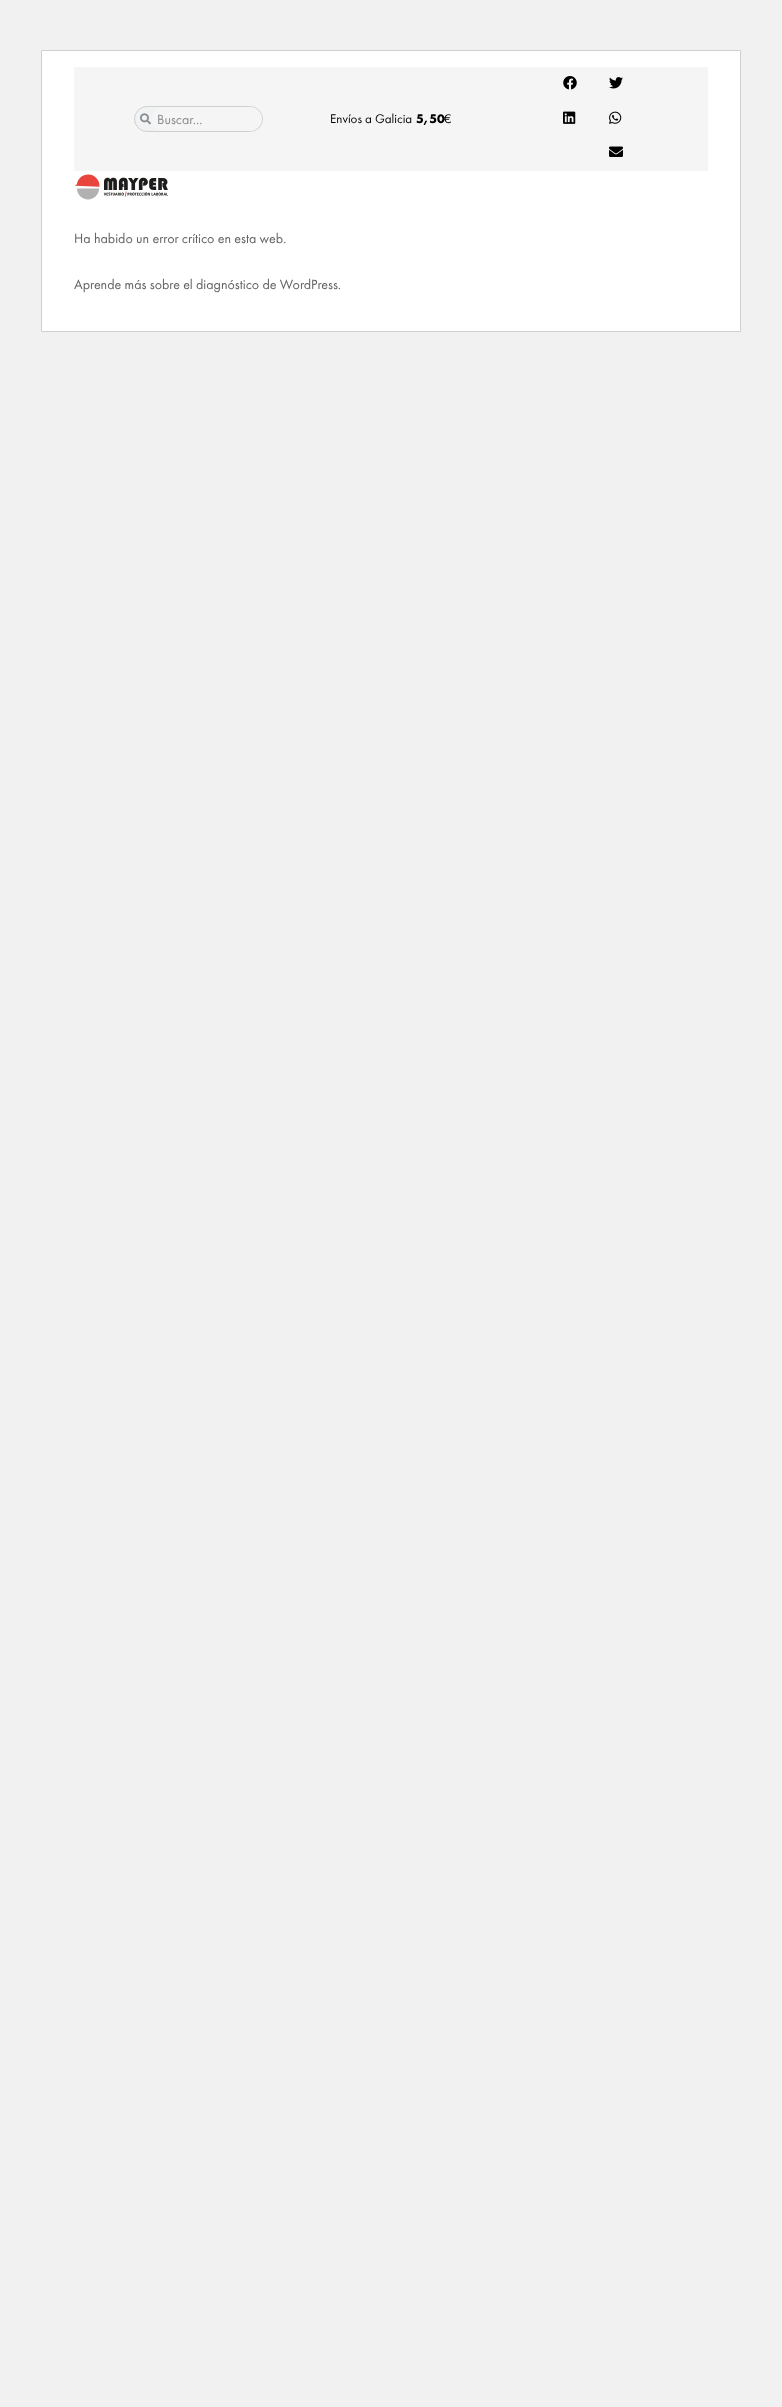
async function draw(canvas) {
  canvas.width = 782;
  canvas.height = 2407;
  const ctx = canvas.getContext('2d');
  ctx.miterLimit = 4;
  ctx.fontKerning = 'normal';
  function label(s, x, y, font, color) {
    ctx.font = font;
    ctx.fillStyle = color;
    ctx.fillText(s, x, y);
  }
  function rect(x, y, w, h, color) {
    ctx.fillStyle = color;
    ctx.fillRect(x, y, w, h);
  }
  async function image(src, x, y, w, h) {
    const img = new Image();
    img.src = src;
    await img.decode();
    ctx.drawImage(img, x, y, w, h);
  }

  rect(0, 0, 782, 2407, '#f1f1f1');
  ctx.fillStyle = '#fff';
  ctx.beginPath();
  ctx.rect(41.5, 50.5, 699, 281);
  ctx.fill();
  ctx.strokeStyle = '#ccd0d4';
  ctx.stroke();
  rect(74, 67, 634, 104, '#f5f5f5');
  ctx.fillStyle = '#f1f2f3';
  ctx.beginPath();
  ctx.roundRect(134.5, 106.5, 128, 25, 12.5);
  ctx.fill();
  ctx.strokeStyle = '#d0d0d0';
  ctx.stroke();
  await image('assets/img1.png', 140, 113, 11, 12);
  ctx.fillStyle = '#f5f5f5';
  ctx.beginPath();
  ctx.roundRect(151.5, 107.5, 110, 23, 11.5);
  ctx.fill();
  ctx.strokeStyle = '#f5f5f5';
  ctx.stroke();
  label('Buscar...', 157, 124, '14px Futura PT', '#888b8f');
  label('Envíos a Galicia', 330, 123, '13px Futura PT', '#000');
  label('5,50', 416, 123, 'bold 13px Futura PT', '#000');
  label('€', 444, 123, '13px Futura PT', '#000');
  await image('assets/img2.png', 563, 76, 14, 14);
  await image('assets/img3.png', 609, 77, 14, 12);
  await image('assets/img4.png', 563, 111, 13, 13);
  await image('assets/img5.png', 609, 111, 13, 13);
  await image('assets/img6.png', 609, 146, 14, 11);
  await image('assets/img7.png', 75, 174, 93, 26);
  label('Ha habido un error crítico en esta web.', 74, 243, '14px Futura PT', '#626262');
  label('Aprende más sobre el diagnóstico de WordPress.', 74, 289, '14px Futura PT', '#626262');
}

draw(document.querySelector('canvas'));
